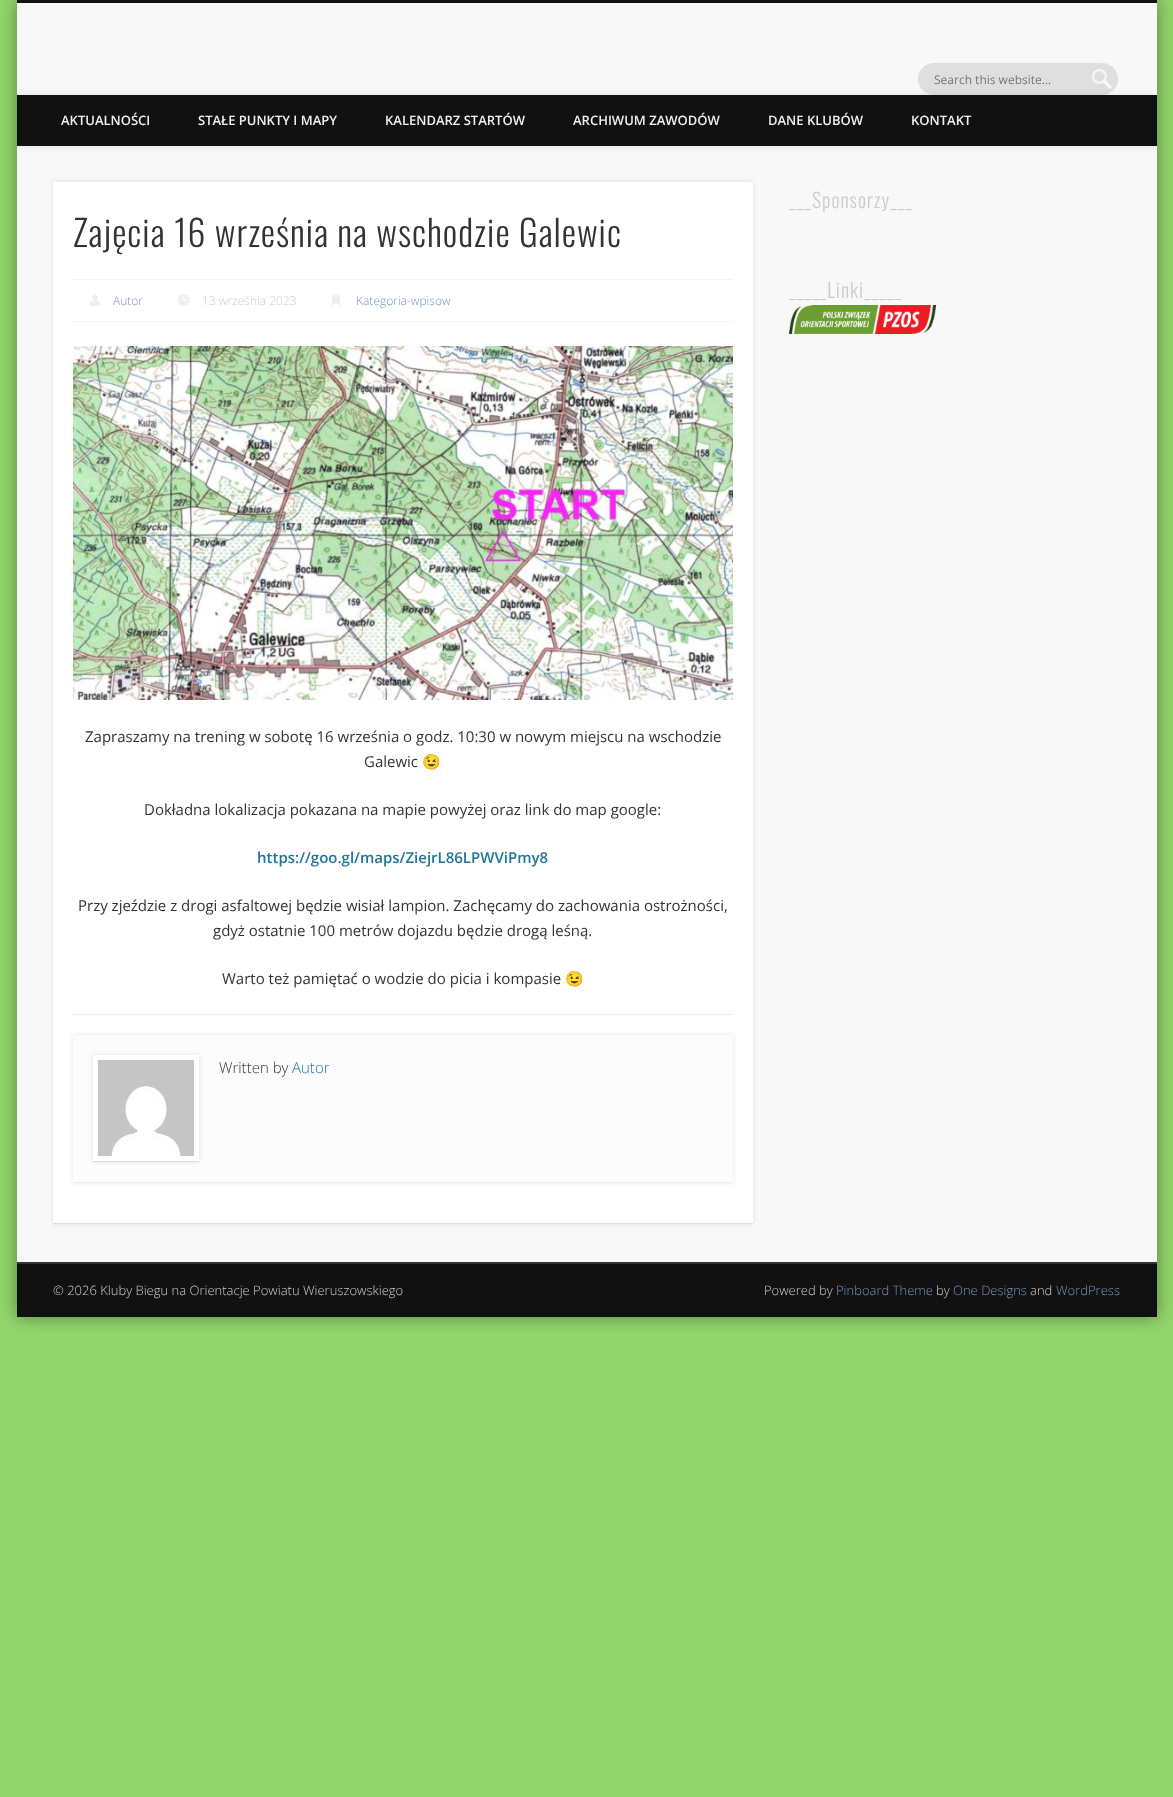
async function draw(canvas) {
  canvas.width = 1173;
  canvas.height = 1797;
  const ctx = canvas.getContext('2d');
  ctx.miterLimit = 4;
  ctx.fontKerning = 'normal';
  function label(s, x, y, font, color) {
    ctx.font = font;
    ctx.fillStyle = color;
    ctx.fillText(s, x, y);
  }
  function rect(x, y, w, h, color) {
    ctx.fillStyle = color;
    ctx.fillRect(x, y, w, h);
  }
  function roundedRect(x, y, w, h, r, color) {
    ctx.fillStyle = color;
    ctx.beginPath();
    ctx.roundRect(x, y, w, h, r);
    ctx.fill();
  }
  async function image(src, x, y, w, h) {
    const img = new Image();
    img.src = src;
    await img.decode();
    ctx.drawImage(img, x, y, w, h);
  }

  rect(0, 0, 1173, 1797, '#92d66b');
  ctx.fillStyle = '#00000066';
  ctx.filter = 'blur(9px)';
  ctx.beginPath();
  ctx.rect(17, 0, 1140, 1317);
  ctx.fill();
  ctx.filter = 'none';
  rect(17, 3, 1140, 1259, '#f8f8f8');
  rect(17, 0, 1140, 3, '#111');
  roundedRect(918, 63, 200, 32, 16, '#dfdfdf');
  await image('assets/img1.png', 1092, 69, 20, 20);
  label('Search this website…', 934, 84, '12px Open Sans', '#757575');
  ctx.save();
  ctx.beginPath();
  ctx.rect(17, 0, 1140, 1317);
  ctx.clip();
  ctx.fillStyle = '#0000001a';
  ctx.filter = 'blur(3.5px)';
  ctx.beginPath();
  ctx.rect(17, 95, 1140, 51);
  ctx.fill();
  ctx.filter = 'none';
  ctx.restore();
  rect(17, 95, 1140, 51, '#111');
  label('AKTUALNOŚCI', 61, 125, '600 13px Open Sans', '#f0f0f0');
  label('STAŁE PUNKTY I MAPY', 198, 125, '600 13px Open Sans', '#f0f0f0');
  label('KALENDARZ STARTÓW', 385, 125, '600 13px Open Sans', '#f0f0f0');
  label('ARCHIWUM ZAWODÓW', 573, 125, '600 13px Open Sans', '#f0f0f0');
  label('DANE KLUBÓW', 768, 125, '600 13px Open Sans', '#f0f0f0');
  label('KONTAKT', 911, 125, '600 13px Open Sans', '#f0f0f0');
  ctx.fillStyle = '#0000001a';
  ctx.filter = 'blur(2.5px)';
  ctx.beginPath();
  ctx.rect(53, 182, 700, 1042);
  ctx.fill();
  ctx.filter = 'none';
  rect(53, 182, 700, 1041, '#fff');
  rect(53, 1223, 700, 1, '#dedede');
  ctx.letterSpacing = '1px';
  label('Zajęcia 16 września na wschodzie Galewic', 73, 247, '300 36px Oswald', '#333');
  rect(73, 279, 660, 1, '#f4f4f4');
  rect(73, 321, 660, 1, '#f4f4f4');
  await image('assets/img2.png', 89, 294, 12, 12);
  ctx.letterSpacing = '0px';
  label('Autor', 113, 305, '300 12px Open Sans', '#7597b9');
  await image('assets/img3.png', 178, 294, 12, 12);
  label('13 września 2023', 202, 305, '300 12px Open Sans', '#ccc');
  await image('assets/img4.png', 332, 294, 8, 12);
  label('Kategoria-wpisow', 356, 305, '300 12px Open Sans', '#7597b9');
  await image('assets/img5.png', 73, 346, 660, 354);
  label('Zapraszamy na trening w sobotę 16 września o godz. 10:30 w nowym miejscu na wschodzie', 85, 742, '15px Open Sans', '#333');
  label('Galewic', 364, 767, '15px Open Sans', '#333');
  label('😉', 422, 767, '15px Noto Color Emoji', '#333');
  label('Dokładna lokalizacja pokazana na mapie powyżej oraz link do map google:', 144, 815, '15px Open Sans', '#333');
  label('https://goo.gl/maps/ZiejrL86LPWViPmy8', 257, 863, '600 15px Open Sans', '#21759b');
  label('Przy zjeździe z drogi asfaltowej będzie wisiał lampion. Zachęcamy do zachowania ostrożności,', 78, 911, '15px Open Sans', '#333');
  label('gdyż ostatnie 100 metrów dojazdu będzie drogą leśną.', 213, 936, '15px Open Sans', '#333');
  label('Warto też pamiętać o wodzie do picia i kompasie', 222, 984, '15px Open Sans', '#333');
  label('😉', 565, 984, '15px Noto Color Emoji', '#333');
  rect(73, 1014, 660, 1, '#eee');
  ctx.fillStyle = '#0000001a';
  ctx.filter = 'blur(2.5px)';
  ctx.beginPath();
  ctx.rect(73, 1035, 660, 148);
  ctx.fill();
  ctx.filter = 'none';
  rect(73, 1035, 660, 147, '#fcfcfc');
  rect(73, 1182, 660, 1, '#eee');
  ctx.fillStyle = '#0000001a';
  ctx.filter = 'blur(2.5px)';
  ctx.beginPath();
  ctx.rect(93, 1055, 106, 107);
  ctx.fill();
  ctx.filter = 'none';
  rect(93, 1055, 106, 106, '#fff');
  rect(93, 1161, 106, 1, '#ddd');
  await image('assets/img6.png', 98, 1060, 96, 96);
  label('Written by', 219, 1073, '300 15px Open Sans', '#333');
  label('Autor', 292, 1073, '300 15px Open Sans', '#21759b');
  ctx.letterSpacing = '1px';
  label('___Sponsorzy___', 789, 208, '300 20px Oswald', '#ccc');
  label('_____Linki_____', 789, 298, '300 20px Oswald', '#ccc');
  await image('assets/img7.png', 789, 305, 147, 29);
  rect(17, 1262, 1140, 2, '#343434');
  rect(17, 1264, 1140, 53, '#111');
  ctx.letterSpacing = '0px';
  label('© 2026 Kluby Biegu na Orientacje Powiatu Wieruszowskiego', 53, 1295, '300 13px Open Sans', '#ccc');
  label('Powered by', 764, 1295, '300 13px Open Sans', '#ccc');
  label('Pinboard Theme', 836, 1295, '300 13px Open Sans', '#7597b9');
  label('by', 936, 1295, '300 13px Open Sans', '#ccc');
  label('One Designs', 953, 1295, '300 13px Open Sans', '#7597b9');
  label('and', 1030, 1295, '300 13px Open Sans', '#ccc');
  label('WordPress', 1056, 1295, '300 13px Open Sans', '#7597b9');
}

draw(document.querySelector('canvas'));
